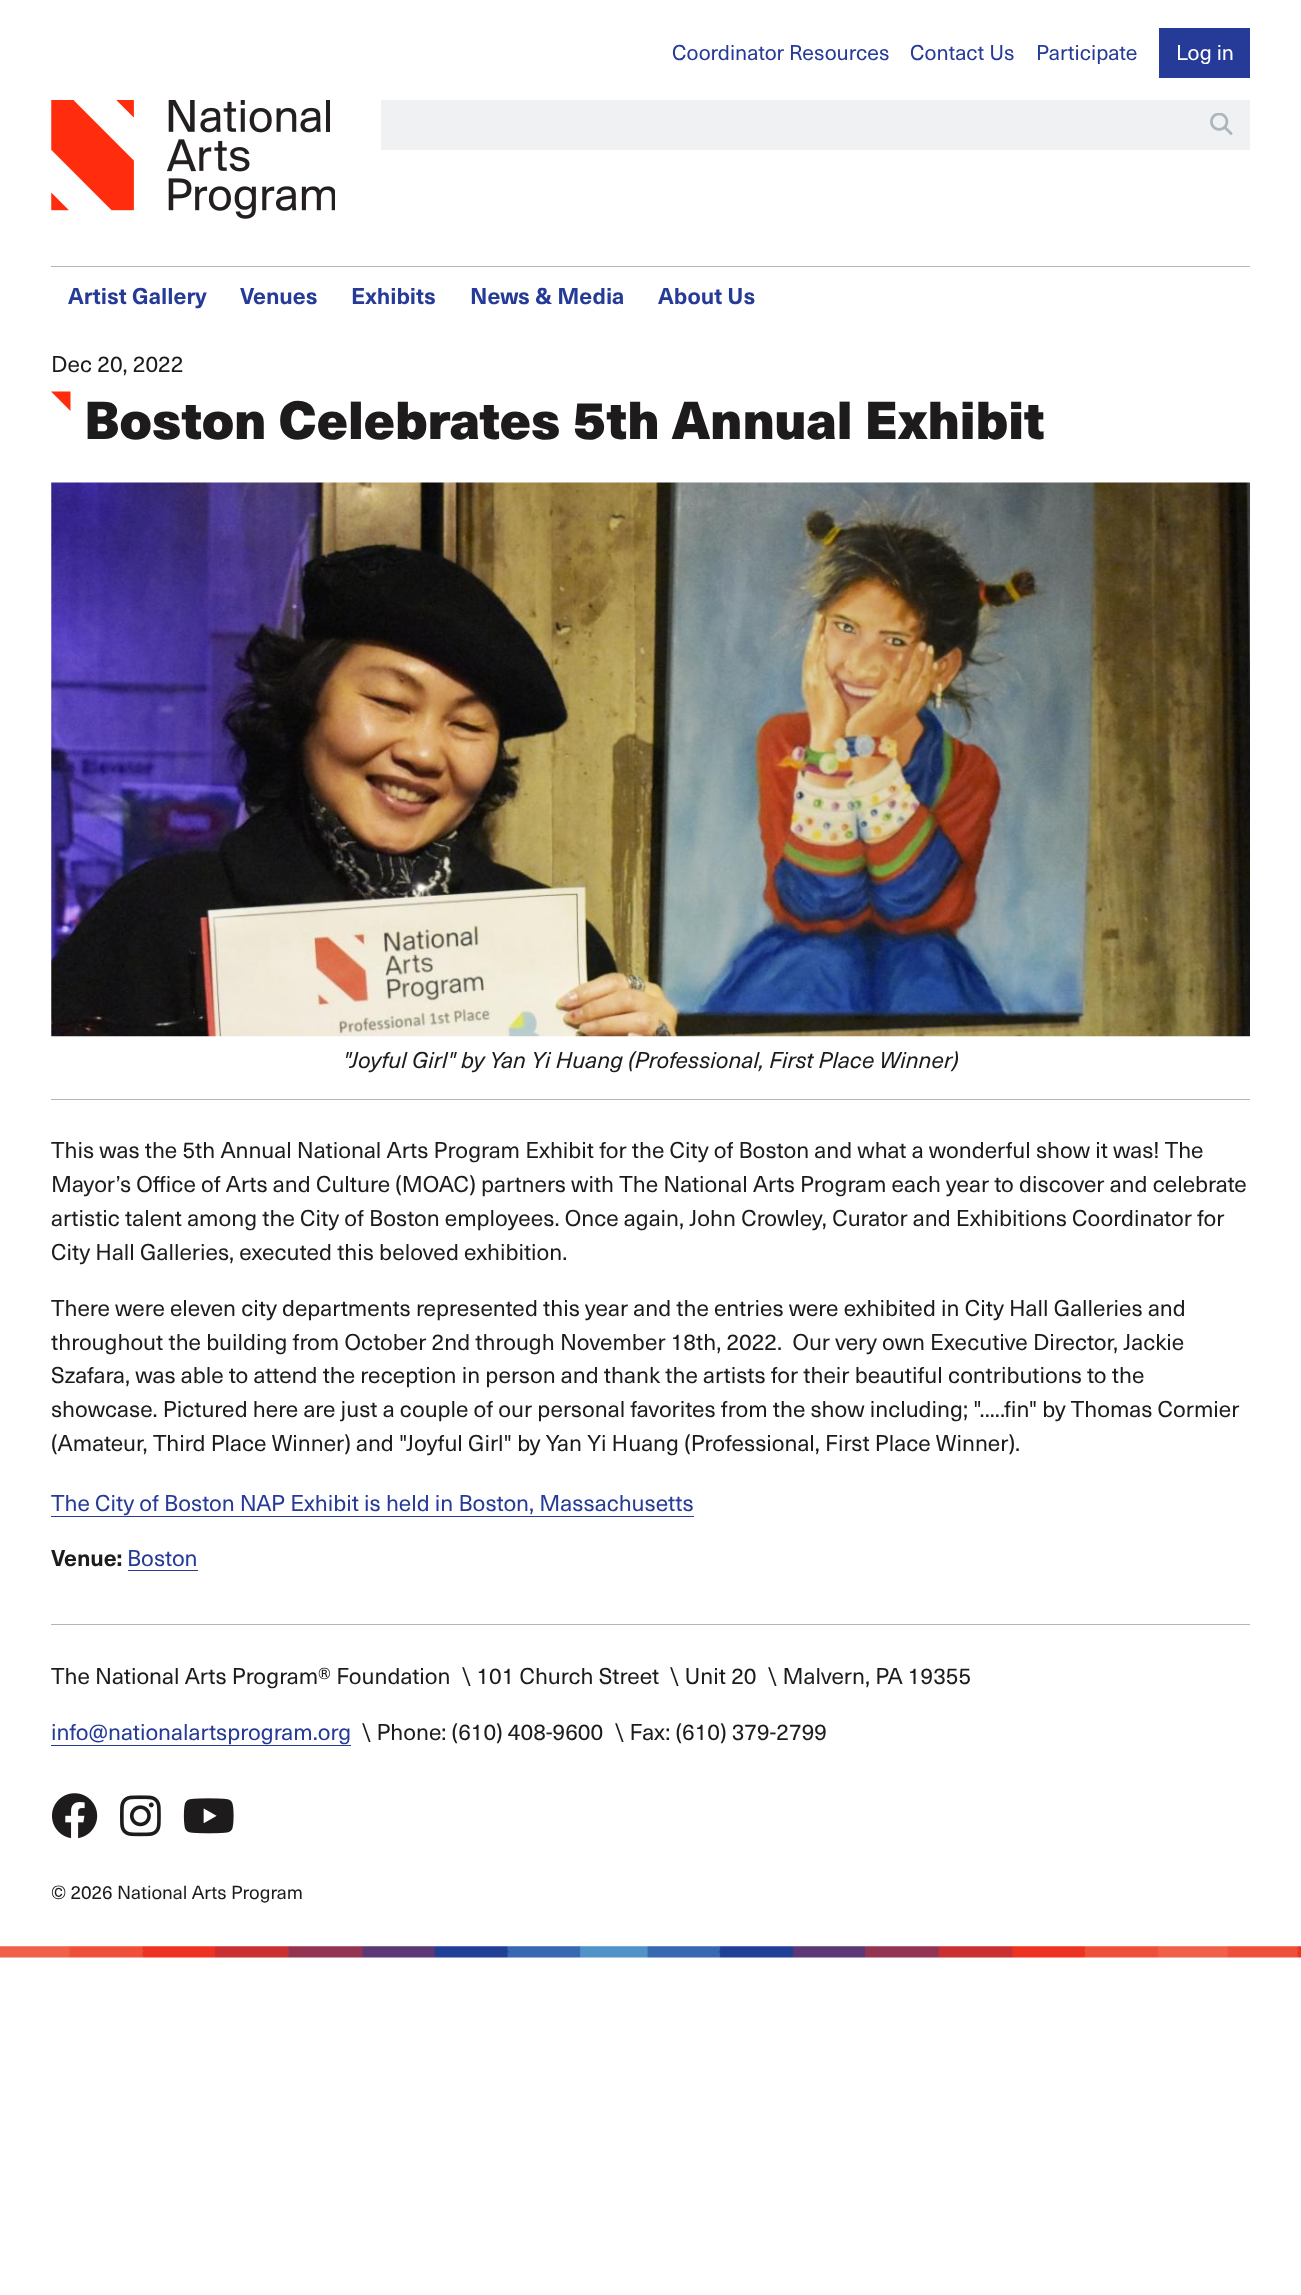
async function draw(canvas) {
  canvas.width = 1301;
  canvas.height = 2295;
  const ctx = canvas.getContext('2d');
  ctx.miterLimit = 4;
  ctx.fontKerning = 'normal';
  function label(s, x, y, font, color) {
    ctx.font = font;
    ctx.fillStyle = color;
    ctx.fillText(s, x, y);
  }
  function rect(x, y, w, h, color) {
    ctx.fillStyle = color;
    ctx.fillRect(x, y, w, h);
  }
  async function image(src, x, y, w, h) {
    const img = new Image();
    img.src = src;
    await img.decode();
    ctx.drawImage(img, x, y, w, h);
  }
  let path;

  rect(0, 0, 1301, 2295, '#fff');
  label('Coordinator Resources', 672, 60, '21.1px "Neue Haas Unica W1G"', '#263b97');
  label('Contact Us', 910, 60, '21.1px "Neue Haas Unica W1G"', '#263b97');
  label('Participate', 1036, 60, '21.1px "Neue Haas Unica W1G"', '#263b97');
  rect(1159, 28, 91, 50, '#263b97');
  label('Log in', 1176, 60, '21.1px "Neue Haas Unica W1G"', '#fff');
  await image('assets/img1.png', 51, 100, 284, 119);
  rect(381, 100, 869, 50, '#f0f1f3');
  await image('assets/img2.png', 1210, 113, 23, 22);
  rect(51, 266, 1199, 1, '#adb5bd');
  label('Artist Gallery', 68, 304, 'bold 22.5px "Neue Haas Unica W1G"', '#263b97');
  label('Venues', 240, 304, 'bold 22.5px "Neue Haas Unica W1G"', '#263b97');
  label('Exhibits', 351, 304, 'bold 22.5px "Neue Haas Unica W1G"', '#263b97');
  label('News & Media', 470, 304, 'bold 22.5px "Neue Haas Unica W1G"', '#263b97');
  label('About Us', 658, 304, 'bold 22.5px "Neue Haas Unica W1G"', '#263b97');
  label('Dec 20, 2022', 51, 372, '22.5px "Neue Haas Unica W1G"', '#1e1b1c');
  ctx.fillStyle = '#ff2d0d';
  path = new Path2D('M70.5 391.5V411L51 391.5Z');
  ctx.fill(path);
  label('Boston Celebrates 5th Annual Exhibit', 84, 439, '900 52.5px "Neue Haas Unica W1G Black"', '#1e1b1c');
  rect(51, 1099, 1199, 1, '#adb5bd');
  await image('assets/img3.png', 51, 482, 1199, 555);
  label('"Joyful Girl" by Yan Yi Huang (Professional, First Place Winner)', 343, 1068, 'italic 22.5px "Neue Haas Unica W1G"', '#1e1b1c');
  label('This was the 5th Annual National Arts Program Exhibit for the City of Boston and what a wonderful show it was! The', 51, 1158, '22.5px "Neue Haas Unica W1G"', '#1e1b1c');
  label('Mayor’s Office of Arts and Culture (MOAC) partners with The National Arts Program each year to discover and celebrate', 51, 1192, '22.5px "Neue Haas Unica W1G"', '#1e1b1c');
  label('artistic talent among the City of Boston employees. Once again, John Crowley, Curator and Exhibitions Coordinator for', 51, 1226, '22.5px "Neue Haas Unica W1G"', '#1e1b1c');
  label('City Hall Galleries, executed this beloved exhibition.', 51, 1260, '22.5px "Neue Haas Unica W1G"', '#1e1b1c');
  label('There were eleven city departments represented this year and the entries were exhibited in City Hall Galleries and', 51, 1316, '22.5px "Neue Haas Unica W1G"', '#1e1b1c');
  label('throughout the building from October 2nd through November 18th, 2022.  Our very own Executive Director, Jackie', 51, 1350, '22.5px "Neue Haas Unica W1G"', '#1e1b1c');
  label('Szafara, was able to attend the reception in person and thank the artists for their beautiful contributions to the', 51, 1383, '22.5px "Neue Haas Unica W1G"', '#1e1b1c');
  label('showcase. Pictured here are just a couple of our personal favorites from the show including; ".....fin" by Thomas Cormier', 51, 1417, '22.5px "Neue Haas Unica W1G"', '#1e1b1c');
  label('(Amateur, Third Place Winner) and "Joyful Girl" by Yan Yi Huang (Professional, First Place Winner).', 51, 1451, '22.5px "Neue Haas Unica W1G"', '#1e1b1c');
  label('The City of Boston NAP Exhibit is held in Boston, Massachusetts', 51, 1511, '22.5px "Neue Haas Unica W1G"', '#263b97');
  rect(51, 1516, 643, 1, '#263b97');
  label('Venue:', 51, 1566, 'bold 22.5px "Neue Haas Unica W1G"', '#1e1b1c');
  label('Boston', 127, 1566, '22.5px "Neue Haas Unica W1G"', '#263b97');
  rect(128, 1570, 70, 1, '#263b97');
  await image('assets/img4.png', 0, 1946, 1301, 12);
  rect(51, 1624, 1199, 1, '#adb5bd');
  label('The National Arts Program® Foundation', 51, 1684, '22.5px "Neue Haas Unica W1G"', '#1e1b1c');
  label('\\ 101 Church Street', 461, 1684, '22.5px "Neue Haas Unica W1G"', '#1e1b1c');
  label('\\ Unit 20', 669, 1684, '22.5px "Neue Haas Unica W1G"', '#1e1b1c');
  label('\\ Malvern, PA 19355', 767, 1684, '22.5px "Neue Haas Unica W1G"', '#1e1b1c');
  label('info@nationalartsprogram.org', 51, 1740, '22.5px "Neue Haas Unica W1G"', '#263b97');
  rect(51, 1745, 300, 1, '#263b97');
  label('\\ Phone: (610) 408-9600', 361, 1740, '22.5px "Neue Haas Unica W1G"', '#1e1b1c');
  label('\\ Fax: (610) 379-2799', 614, 1740, '22.5px "Neue Haas Unica W1G"', '#1e1b1c');
  await image('assets/img5.png', 52, 1793, 46, 46);
  await image('assets/img6.png', 120, 1795, 41, 42);
  await image('assets/img7.png', 183, 1798, 51, 36);
  label('© 2026 National Arts Program', 51, 1899, '18.75px "Neue Haas Unica W1G"', '#1e1b1c');
}

draw(document.querySelector('canvas'));
